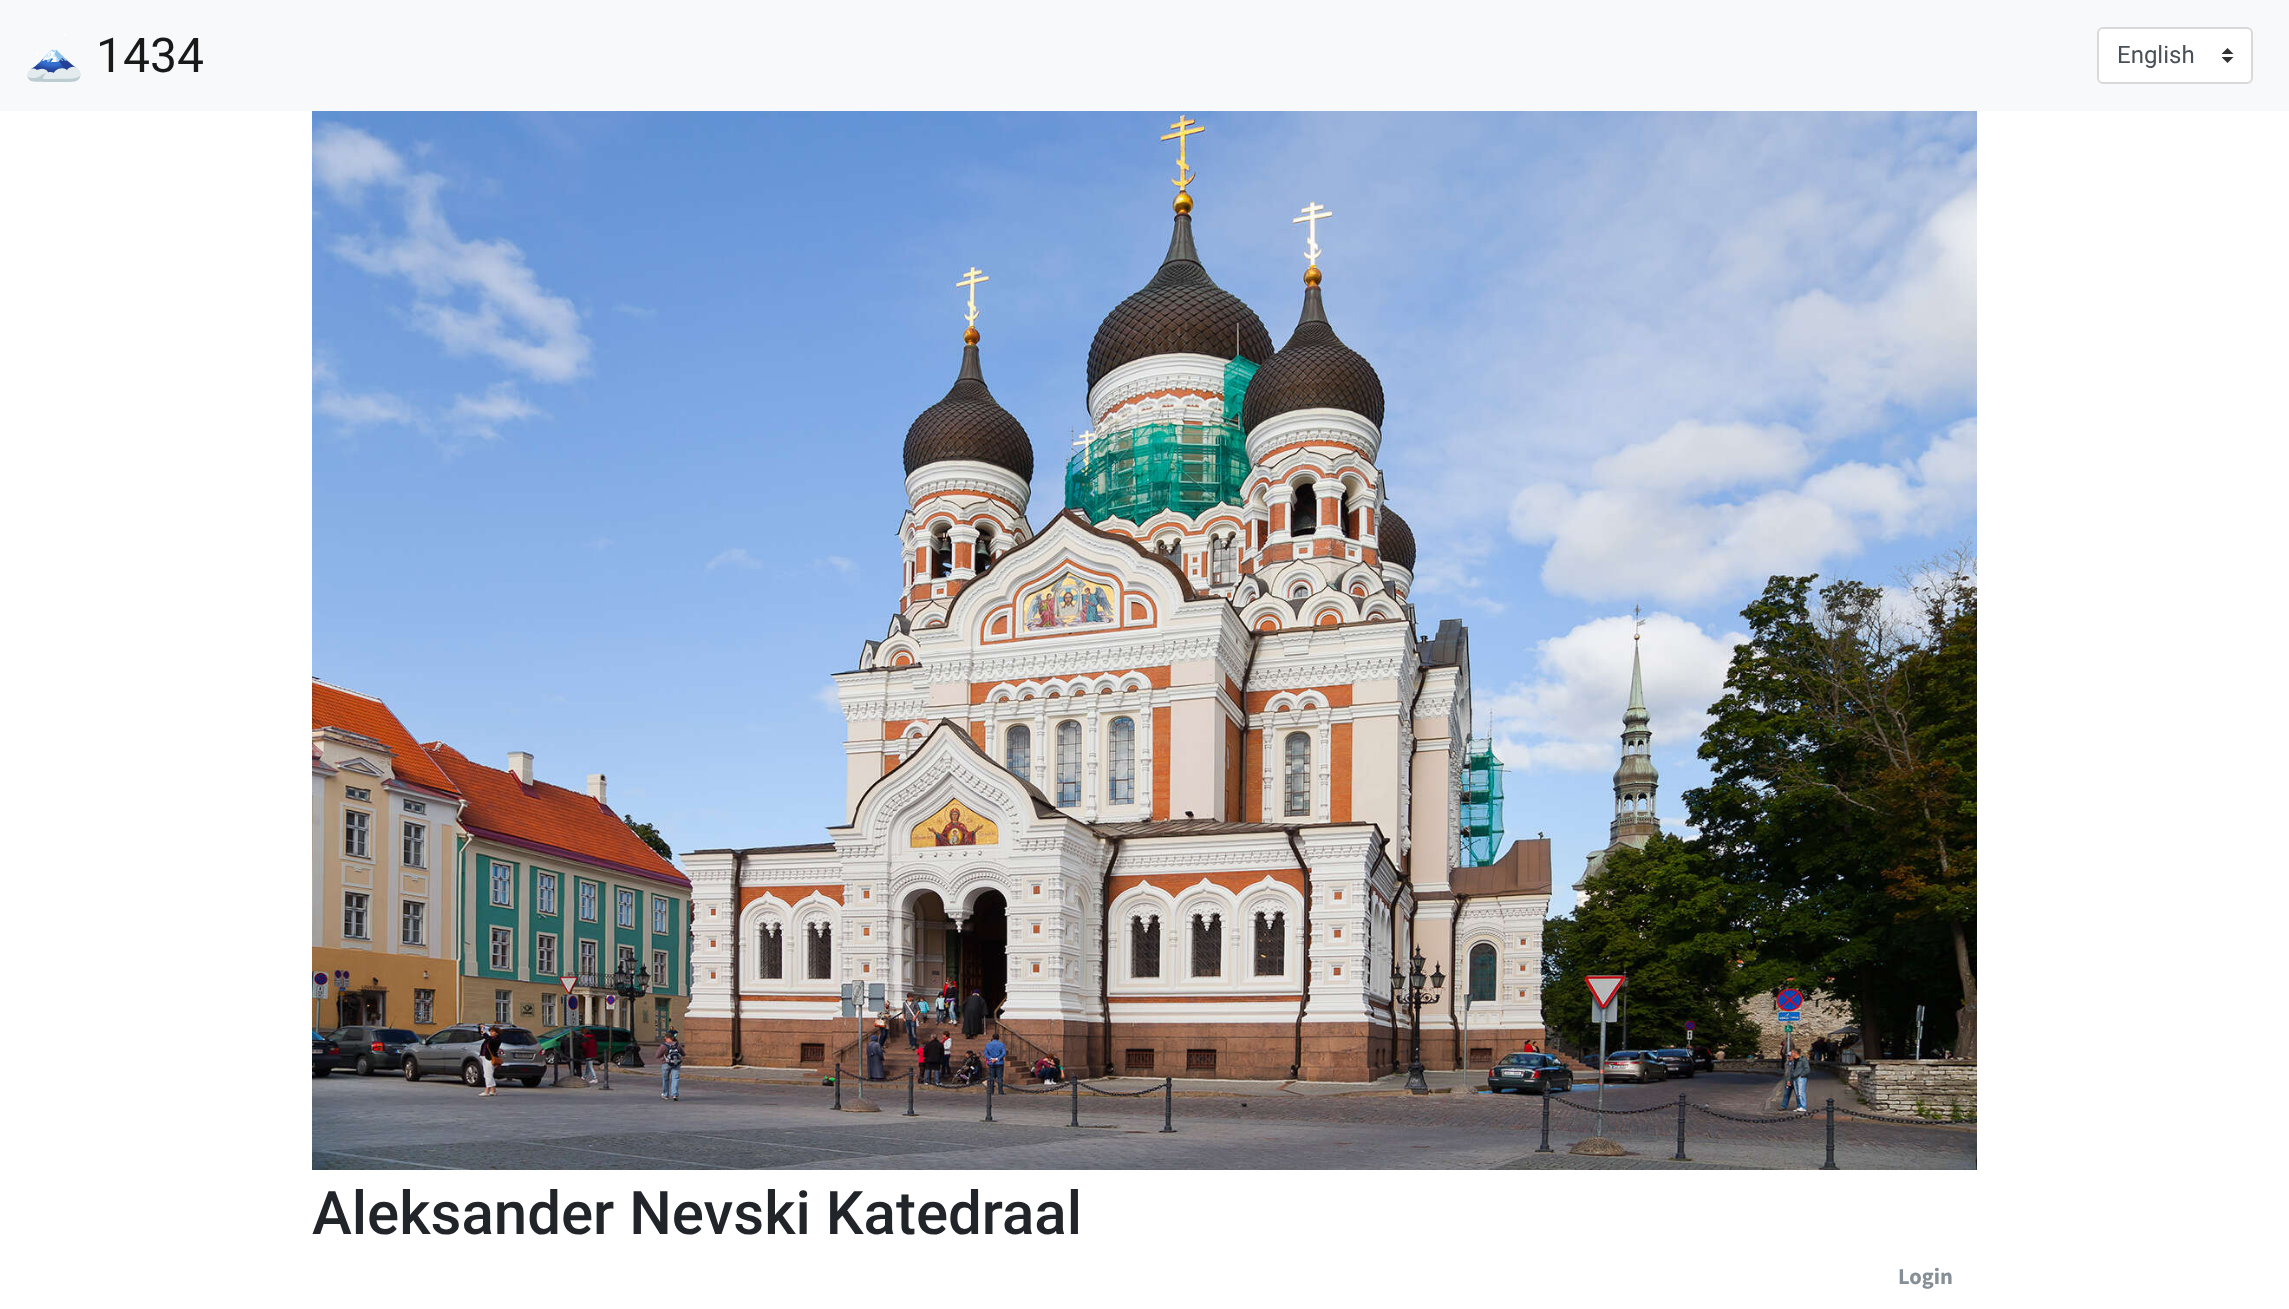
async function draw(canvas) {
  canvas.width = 2289;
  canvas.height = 1309;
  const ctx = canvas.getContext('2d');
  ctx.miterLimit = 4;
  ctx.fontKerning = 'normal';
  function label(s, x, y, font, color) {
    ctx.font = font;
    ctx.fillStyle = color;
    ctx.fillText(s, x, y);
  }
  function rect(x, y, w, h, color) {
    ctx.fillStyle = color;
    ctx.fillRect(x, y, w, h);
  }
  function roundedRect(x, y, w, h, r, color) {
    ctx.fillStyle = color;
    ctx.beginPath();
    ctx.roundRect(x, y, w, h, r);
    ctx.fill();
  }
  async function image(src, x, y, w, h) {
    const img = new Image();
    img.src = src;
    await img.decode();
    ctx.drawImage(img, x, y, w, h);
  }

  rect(0, 0, 2289, 1309, '#fff');
  rect(0, 0, 2289, 111, '#f8f9fa');
  label('🗻', 24, 72, '48px Noto Color Emoji', '#191919');
  label('1434', 96, 72, '48px Roboto', '#191919');
  roundedRect(2097, 27, 156, 57, 6, '#fff');
  await image('assets/img1.png', 2222, 48, 12, 15);
  ctx.beginPath();
  ctx.roundRect(2098, 28, 154, 55, 5);
  ctx.strokeStyle = '#d9d9d9';
  ctx.lineWidth = 2;
  ctx.stroke();
  label('English', 2117, 63, '24px Roboto', '#495057');
  await image('assets/img2.png', 312, 111, 1665, 1059);
  label('Aleksander Nevski Katedraal', 312, 1234, '500 60px Roboto', '#212529');
  label('Login', 1898, 1284, 'bold 22.5px Source Sans Pro', '#868e96');
}

draw(document.querySelector('canvas'));
